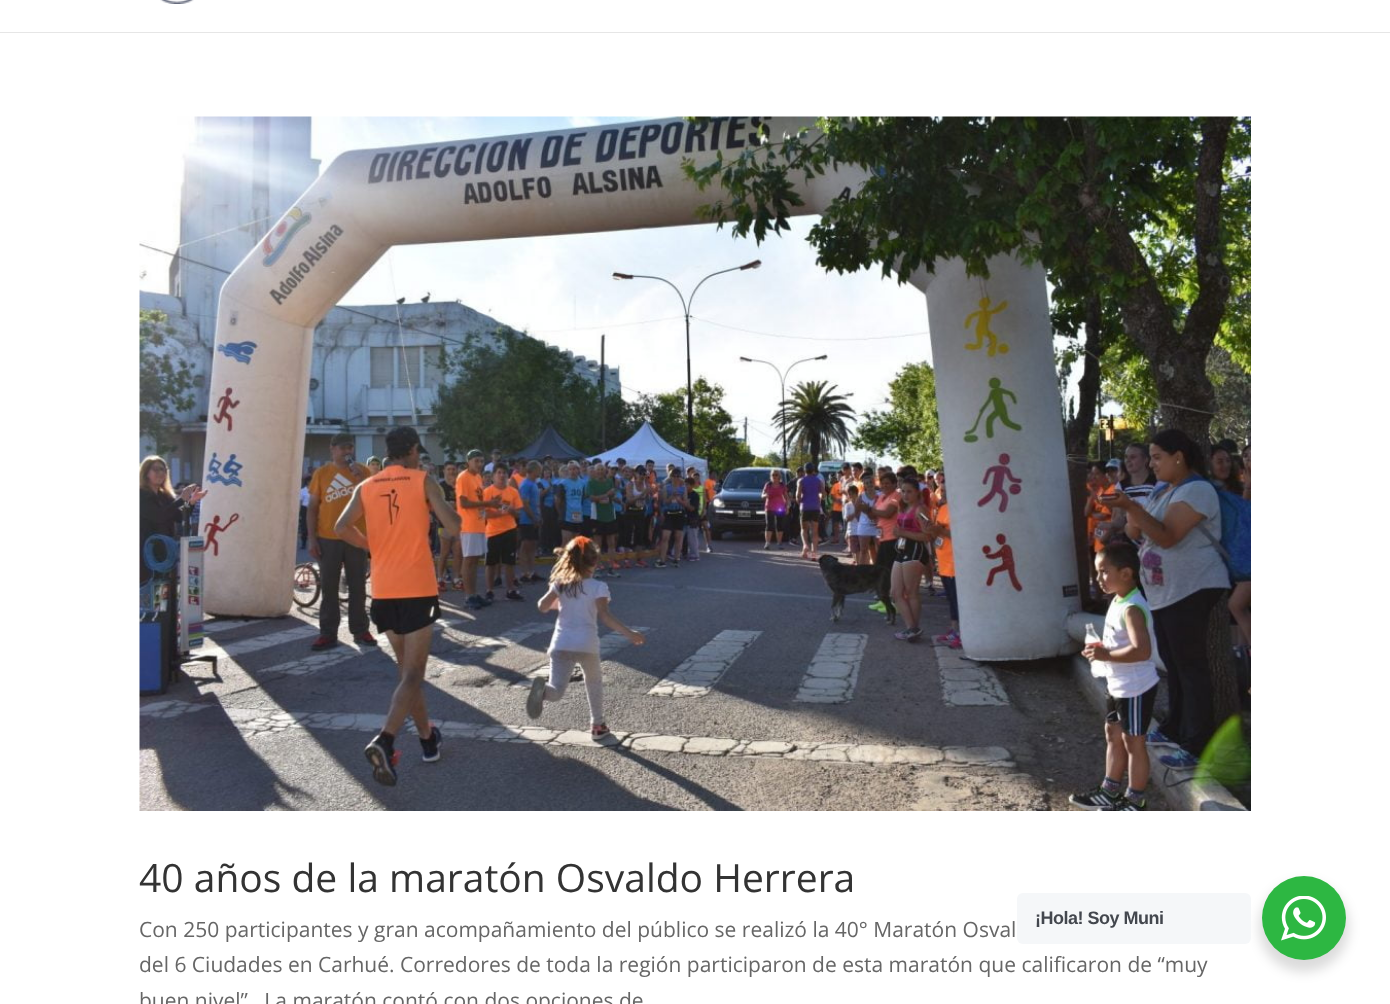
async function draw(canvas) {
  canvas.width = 1390;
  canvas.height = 1004;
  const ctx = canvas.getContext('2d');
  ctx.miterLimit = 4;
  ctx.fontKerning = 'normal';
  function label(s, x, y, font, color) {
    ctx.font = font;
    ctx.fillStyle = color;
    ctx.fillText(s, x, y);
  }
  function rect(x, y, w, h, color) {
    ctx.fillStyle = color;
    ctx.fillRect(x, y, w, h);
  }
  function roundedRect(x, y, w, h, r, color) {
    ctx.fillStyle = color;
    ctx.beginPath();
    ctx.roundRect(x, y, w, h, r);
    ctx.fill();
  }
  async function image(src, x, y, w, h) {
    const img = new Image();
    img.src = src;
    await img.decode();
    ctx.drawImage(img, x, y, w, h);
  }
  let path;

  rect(0, 0, 1390, 1004, '#fff');
  ctx.fillStyle = '#e6e6e6';
  path = new Path2D('M0 32V33H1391V-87H1390V32Z');
  ctx.fill(path);
  await image('assets/img1.png', 160, 0, 34, 4);
  await image('assets/img2.png', 139, 116, 1112, 695);
  label('40 años de la maratón Osvaldo Herrera', 139, 892, '39px Open Sans', '#333');
  label('Con 250 participantes y gran acompañamiento del público se realizó la 40° Maratón Osval', 139, 937, '21px Open Sans', '#666');
  label('del 6 Ciudades en Carhué. Corredores de toda la región participaron de esta maratón que calificaron de “muy', 139, 972, '21px Open Sans', '#666');
  label('buen nivel” . La maratón contó con dos opciones de', 139, 1008, '21px Open Sans', '#666');
  ctx.fillStyle = '#00000024';
  ctx.filter = 'blur(6px)';
  ctx.beginPath();
  ctx.roundRect(1259, 882, 90, 90, 45);
  ctx.fill();
  ctx.filter = 'none';
  roundedRect(1017, 893, 234, 51, 6, '#f5f7f9');
  ctx.letterSpacing = '-0.5px';
  label('¡Hola! Soy Muni', 1035, 924, 'bold 18px Liberation Sans', '#43474e');
  ctx.fillStyle = '#2db742';
  ctx.beginPath();
  ctx.arc(1304, 918, 42, 0, 2 * Math.PI);
  ctx.fill();
  await image('assets/img3.png', 1281, 896, 45, 45);
}

draw(document.querySelector('canvas'));
